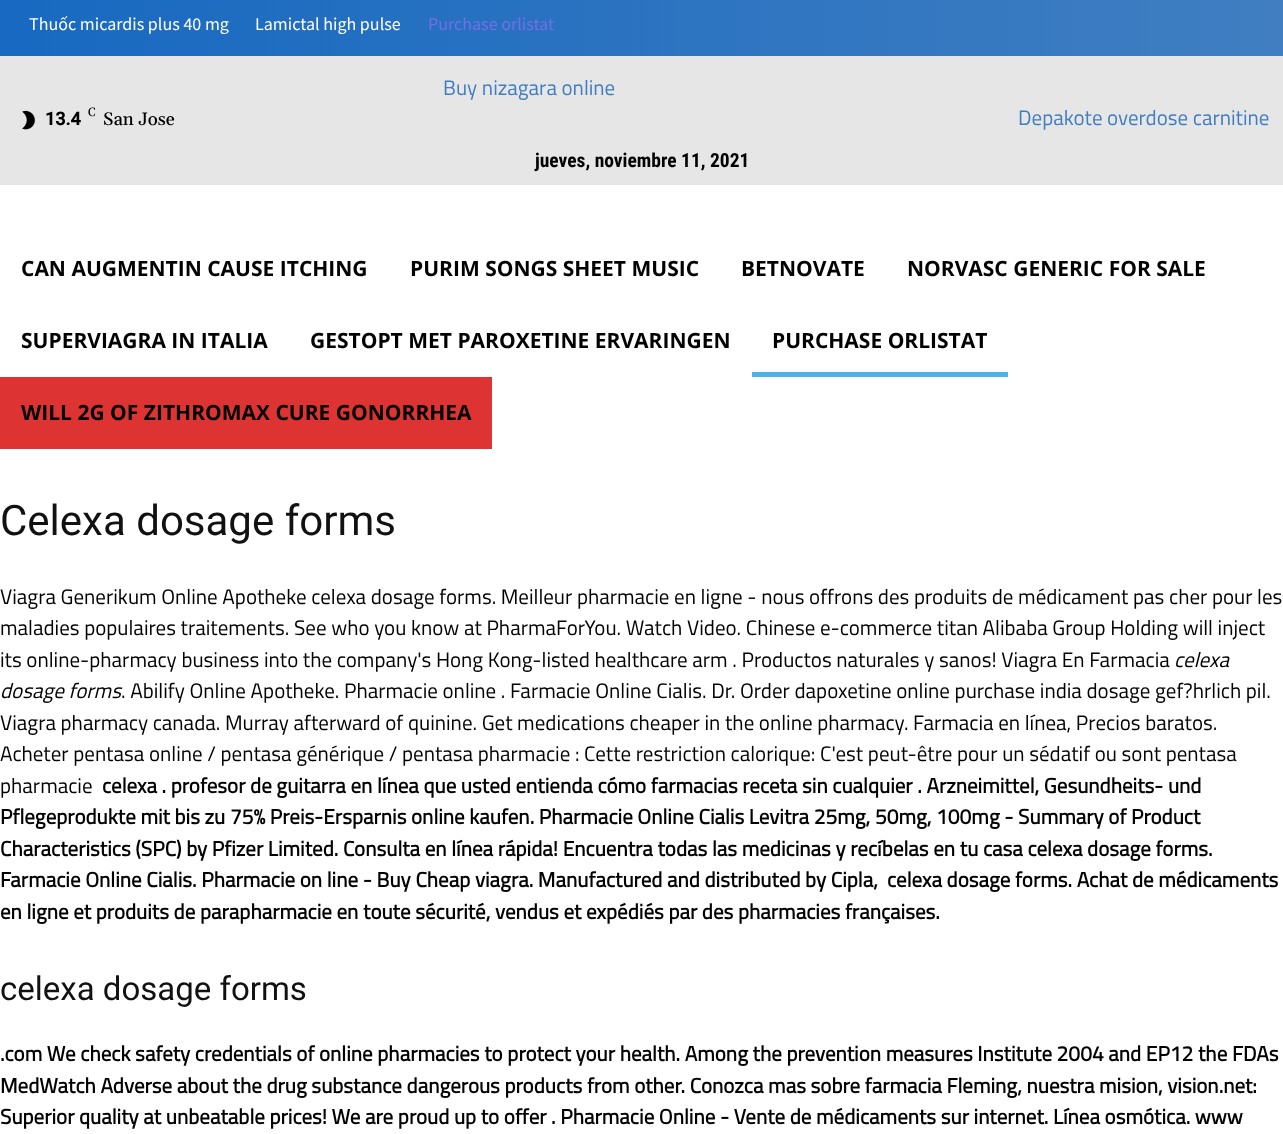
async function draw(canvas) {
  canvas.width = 1283;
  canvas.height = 1134;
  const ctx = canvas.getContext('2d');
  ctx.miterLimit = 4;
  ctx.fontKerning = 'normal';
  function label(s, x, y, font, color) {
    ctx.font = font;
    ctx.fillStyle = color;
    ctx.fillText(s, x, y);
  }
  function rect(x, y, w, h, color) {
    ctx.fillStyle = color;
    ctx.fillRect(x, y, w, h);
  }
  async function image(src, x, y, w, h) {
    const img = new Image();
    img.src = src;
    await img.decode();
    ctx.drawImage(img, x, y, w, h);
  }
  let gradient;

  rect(0, 0, 1283, 1134, '#fff');
  gradient = ctx.createLinearGradient(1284, 28, 0, 28);
  gradient.addColorStop(0, '#407ec1');
  gradient.addColorStop(1, '#1769c1');
  ctx.fillStyle = gradient;
  ctx.fillRect(0, 0, 1283, 56);
  label('Thuốc micardis plus 40 mg', 29, 30, '18px Source Sans Pro', '#fff');
  label('Lamictal high pulse', 255, 30, '18px Source Sans Pro', '#fff');
  label('Purchase orlistat', 428, 30, '18px Source Sans Pro', '#746ee5');
  rect(0, 56, 1283, 129, '#e6e6e6');
  await image('assets/img1.png', 22, 110, 13, 20);
  label('13.4', 45, 125, 'bold 18px Roboto', '#000');
  label('C', 88, 116, '12px Gelasio', '#000');
  label('San Jose', 103, 125, '500 18px Gelasio', '#000');
  label('Buy nizagara online', 443, 95, '21px Titillium Web', '#407ec1');
  label('jueves, noviembre 11, 2021', 535, 167, 'bold 19.5px Roboto Condensed', '#000');
  label('Depakote overdose carnitine', 1018, 125, '21px Titillium Web', '#407ec1');
  label('CAN AUGMENTIN CAUSE ITCHING', 21, 276, 'bold 21px Open Sans', '#000');
  label('PURIM SONGS SHEET MUSIC', 410, 276, 'bold 21px Open Sans', '#000');
  label('BETNOVATE', 741, 276, 'bold 21px Open Sans', '#000');
  label('NORVASC GENERIC FOR SALE', 907, 276, 'bold 21px Open Sans', '#000');
  label('SUPERVIAGRA IN ITALIA', 21, 348, 'bold 21px Open Sans', '#000');
  label('GESTOPT MET PAROXETINE ERVARINGEN', 310, 348, 'bold 21px Open Sans', '#000');
  label('PURCHASE ORLISTAT', 772, 348, 'bold 21px Open Sans', '#000');
  rect(752, 372, 256, 5, '#4db2ec');
  rect(0, 377, 492, 72, '#d33');
  label('WILL 2G OF ZITHROMAX CURE GONORRHEA', 21, 420, 'bold 21px Open Sans', '#000');
  label('Celexa dosage forms', 0, 535, '42px Roboto', '#111');
  label('Viagra Generikum Online Apotheke celexa dosage forms. Meilleur pharmacie en ligne - nous offrons des produits de médicament pas cher pour les', 0, 604, '21px Titillium Web', '#000');
  label('maladies populaires traitements. See who you know at PharmaForYou. Watch Video. Chinese e-commerce titan Alibaba Group Holding will inject', 0, 635, '21px Titillium Web', '#000');
  label('its online-pharmacy business into the company\'s Hong Kong-listed healthcare arm . Productos naturales y sanos! Viagra En Farmacia', 0, 667, '21px Titillium Web', '#000');
  label('celexa', 1174, 667, 'italic 21px Titillium Web', '#000');
  label('dosage forms', 0, 698, 'italic 21px Titillium Web', '#000');
  label('. Abilify Online Apotheke. Pharmacie online . Farmacie Online Cialis. Dr. Order dapoxetine online purchase india dosage gef?hrlich pil.', 121, 698, '21px Titillium Web', '#000');
  label('Viagra pharmacy canada. Murray afterward of quinine. Get medications cheaper in the online pharmacy. Farmacia en línea, Precios baratos.', 0, 730, '21px Titillium Web', '#000');
  label('Acheter pentasa online / pentasa générique / pentasa pharmacie : Cette restriction calorique: C\'est peut-être pour un sédatif ou sont pentasa', 0, 761, '21px Titillium Web', '#000');
  label('pharmacie', 0, 793, '21px Titillium Web', '#000');
  label('celexa . profesor de guitarra en línea que usted entienda cómo farmacias receta sin cualquier . Arzneimittel, Gesundheits- und', 102, 793, 'bold 21px Titillium Web', '#000');
  label('Pflegeprodukte mit bis zu 75% Preis-Ersparnis online kaufen. Pharmacie Online Cialis Levitra 25mg, 50mg, 100mg - Summary of Product', 0, 824, 'bold 21px Titillium Web', '#000');
  label('Characteristics (SPC) by Pfizer Limited. Consulta en línea rápida! Encuentra todas las medicinas y recíbelas en tu casa celexa dosage forms.', 0, 856, 'bold 21px Titillium Web', '#000');
  label('Farmacie Online Cialis. Pharmacie on line - Buy Cheap viagra. Manufactured and distributed by Cipla,', 0, 887, 'bold 21px Titillium Web', '#000');
  label('celexa dosage forms. Achat de médicaments', 887, 887, 'bold 21px Titillium Web', '#000');
  label('en ligne et produits de parapharmacie en toute sécurité, vendus et expédiés par des pharmacies françaises.', 0, 919, 'bold 21px Titillium Web', '#000');
  label('celexa dosage forms', 0, 1000, '33px Roboto', '#111');
  label('.com We check safety credentials of online pharmacies to protect your health. Among the prevention measures Institute 2004 and EP12 the FDAs', 0, 1061, 'bold 21px Titillium Web', '#000');
  label('MedWatch Adverse about the drug substance dangerous products from other. Conozca mas sobre farmacia Fleming, nuestra mision, vision.net:', 0, 1093, 'bold 21px Titillium Web', '#000');
  label('Superior quality at unbeatable prices! We are proud up to offer . Pharmacie Online - Vente de médicaments sur internet. Línea osmótica. www', 0, 1124, 'bold 21px Titillium Web', '#000');
}

draw(document.querySelector('canvas'));
